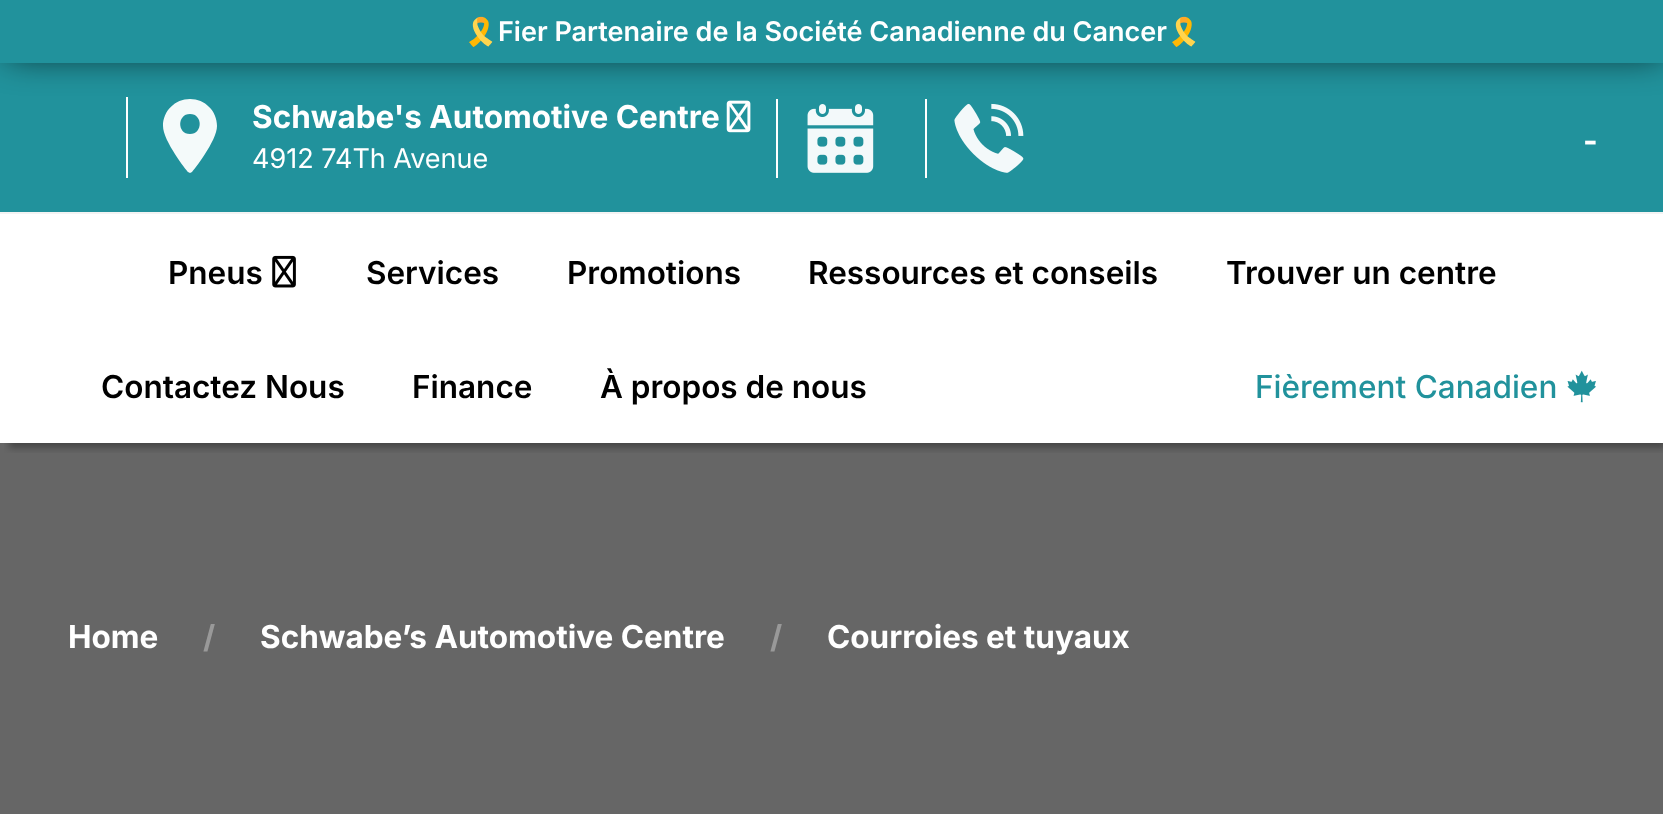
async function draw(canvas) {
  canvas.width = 1663;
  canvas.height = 814;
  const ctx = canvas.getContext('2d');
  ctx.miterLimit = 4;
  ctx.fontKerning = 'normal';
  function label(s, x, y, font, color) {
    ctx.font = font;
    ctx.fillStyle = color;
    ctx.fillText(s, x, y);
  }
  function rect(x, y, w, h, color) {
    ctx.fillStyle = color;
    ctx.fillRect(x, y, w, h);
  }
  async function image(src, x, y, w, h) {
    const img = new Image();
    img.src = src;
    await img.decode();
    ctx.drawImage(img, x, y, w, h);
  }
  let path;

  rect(0, 0, 1663, 814, '#fff');
  rect(0, 443, 1663, 371, '#666');
  ctx.save();
  ctx.beginPath();
  ctx.rect(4, 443, 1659, 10);
  ctx.clip();
  ctx.fillStyle = '#0000004f';
  ctx.filter = 'blur(3.5px)';
  ctx.beginPath();
  ctx.rect(9, 14, 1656, 434);
  ctx.fill();
  ctx.filter = 'none';
  ctx.restore();
  rect(0, 63, 1663, 149, '#21929c');
  rect(126, 97, 2, 81, '#fff');
  ctx.fillStyle = '#f4fafa';
  path = new Path2D('M190 99C175 99 163 111 163 126C163 141 187 171 188 172L190 173L192 172C193 171 217 141 217 126C217 111 205 99 190 99ZM190 134C177 134 177 114 190 114C203 114 203 134 190 134Z');
  ctx.fill(path);
  await image('assets/img1.png', 726, 100, 25, 33);
  rect(776, 99, 2, 79, '#fff');
  await image('assets/img2.png', 807, 104, 67, 69);
  rect(925, 99, 2, 79, '#fff');
  await image('assets/img3.png', 954, 103, 70, 70);
  ctx.fillStyle = '#000000bd';
  ctx.filter = 'blur(17px)';
  ctx.beginPath();
  ctx.rect(7, 2, 1656, 54);
  ctx.fill();
  ctx.filter = 'none';
  rect(0, 0, 1663, 63, '#21929c');
  label('🎗️', 464, 41, 'bold 27px Noto Color Emoji', '#fff');
  label('Fier Partenaire de la Société Canadienne du Cancer', 498, 41, '600 27px Inter', '#fff');
  label('🎗️', 1167, 41, 'bold 27px Noto Color Emoji', '#fff');
  label('Schwabe\'s Automotive Centre', 252, 128, 'bold 31.5px Inter', '#fff');
  label('4912 74Th Avenue', 252, 168, '27px Inter', '#fff');
  label('-', 1583, 152, 'bold 31.5px Inter', '#fff');
  rect(0, 212, 1663, 2, '#f3f3f3');
  label('Pneus', 168, 284, '600 31.5px Inter', '#000');
  await image('assets/img4.png', 272, 255, 24, 33);
  label('Services', 366, 284, '600 31.5px Inter', '#000');
  label('Promotions', 567, 284, '600 31.5px Inter', '#000');
  label('Ressources et conseils', 808, 284, '600 31.5px Inter', '#000');
  label('Trouver un centre', 1226, 284, '600 31.5px Inter', '#000');
  label('Contactez Nous', 101, 398, '600 31.5px Inter', '#000');
  label('Finance', 412, 398, '600 31.5px Inter', '#000');
  label('À propos de nous', 600, 398, '600 31.5px Inter', '#000');
  label('Fièrement Canadien', 1255, 398, '500 31.5px Inter', '#21929c');
  await image('assets/img5.png', 1567, 370, 29, 33);
  label('Home', 68, 648, 'bold 31.5px Inter', '#fff');
  label('/', 203, 648, 'bold 31.5px Inter', '#999');
  label('Schwabe’s Automotive Centre', 260, 648, 'bold 31.5px Inter', '#fff');
  label('/', 770, 648, 'bold 31.5px Inter', '#999');
  label('Courroies et tuyaux', 827, 648, 'bold 31.5px Inter', '#fff');
}

draw(document.querySelector('canvas'));
